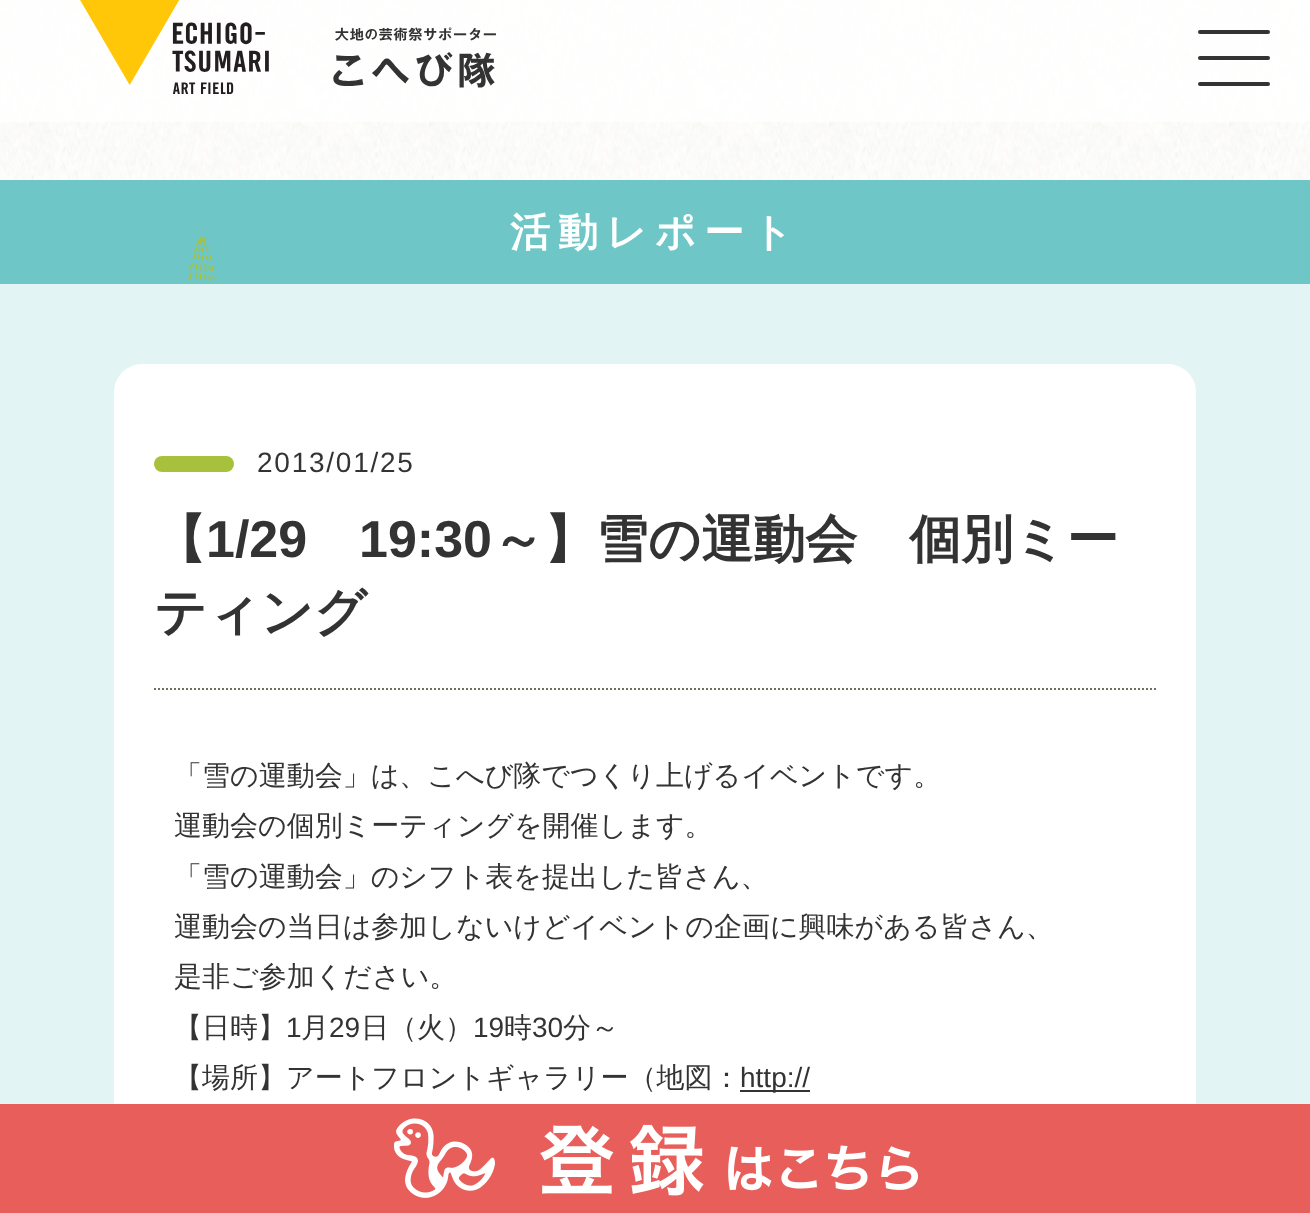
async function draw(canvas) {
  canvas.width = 1310;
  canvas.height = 1213;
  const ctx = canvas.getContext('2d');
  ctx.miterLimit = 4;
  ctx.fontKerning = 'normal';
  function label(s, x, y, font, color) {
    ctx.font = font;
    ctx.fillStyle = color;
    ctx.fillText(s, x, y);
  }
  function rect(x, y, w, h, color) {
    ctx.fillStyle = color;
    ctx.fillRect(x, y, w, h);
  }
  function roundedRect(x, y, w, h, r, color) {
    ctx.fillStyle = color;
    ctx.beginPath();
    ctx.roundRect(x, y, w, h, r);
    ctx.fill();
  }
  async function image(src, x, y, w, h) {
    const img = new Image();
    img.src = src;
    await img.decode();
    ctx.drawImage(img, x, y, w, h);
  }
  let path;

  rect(0, 0, 1310, 1213, '#fff');
  await image('assets/img1.png', 0, 0, 1310, 180);
  rect(0, 0, 1310, 122, '#ffffffcc');
  await image('assets/img2.png', 80, 0, 416, 94);
  roundedRect(1198, 30, 72, 4, 2, '#333');
  roundedRect(1198, 56, 72, 4, 2, '#333');
  roundedRect(1198, 82, 72, 4, 2, '#333');
  rect(0, 180, 1310, 104, '#6fc6c7');
  ctx.letterSpacing = '8px';
  label('活動レポート', 510, 246, 'bold 40px WenQuanYi Zen Hei', '#fff');
  await image('assets/img3.png', 0, 236, 215, 48);
  rect(0, 284, 1310, 820, '#e2f4f4');
  roundedRect(114, 364, 1082, 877, 28, '#fff');
  roundedRect(154, 456, 80, 16, 8, '#a8c13d');
  ctx.letterSpacing = '1.75px';
  label('2013/01/25', 257, 472, '28px Liberation Sans', '#333');
  path = new Path2D('M154 689H1156');
  ctx.strokeStyle = '#6c725d';
  ctx.lineWidth = 2;
  ctx.setLineDash([2, 2]);
  ctx.stroke(path);
  ctx.letterSpacing = '0px';
  label('【', 154, 557, 'bold 52px WenQuanYi Zen Hei', '#333');
  label('1/29', 206, 557, 'bold 52px Liberation Sans', '#333');
  label('19:30', 359, 557, 'bold 52px Liberation Sans', '#333');
  label('～】雪の運動会　個別ミー', 492, 557, 'bold 52px WenQuanYi Zen Hei', '#333');
  label('ティング', 154, 630, 'bold 52px WenQuanYi Zen Hei', '#333');
  label('「雪の運動会」は、こへび隊でつくり上げるイベントです。', 174, 785, '500 28px WenQuanYi Zen Hei', '#333');
  label('運動会の個別ミーティングを開催します。', 174, 835, '500 28px WenQuanYi Zen Hei', '#333');
  label('「雪の運動会」のシフト表を提出した皆さん、', 174, 886, '500 28px WenQuanYi Zen Hei', '#333');
  label('運動会の当日は参加しないけどイベントの企画に興味がある皆さん、', 174, 936, '500 28px WenQuanYi Zen Hei', '#333');
  label('是非ご参加ください。', 174, 986, '500 28px WenQuanYi Zen Hei', '#333');
  label('【日時】', 174, 1037, '500 28px WenQuanYi Zen Hei', '#333');
  label('1', 286, 1037, '28px Liberation Sans', '#333');
  label('月', 301, 1037, '500 28px WenQuanYi Zen Hei', '#333');
  label('29', 329, 1037, '28px Liberation Sans', '#333');
  label('日（火）', 361, 1037, '500 28px WenQuanYi Zen Hei', '#333');
  label('19', 473, 1037, '28px Liberation Sans', '#333');
  label('時', 504, 1037, '500 28px WenQuanYi Zen Hei', '#333');
  label('30', 532, 1037, '28px Liberation Sans', '#333');
  label('分～', 563, 1037, '500 28px WenQuanYi Zen Hei', '#333');
  label('【場所】アートフロントギャラリー（地図：', 174, 1087, '500 28px WenQuanYi Zen Hei', '#333');
  rect(740, 1090, 70, 2, '#333');
  label('http://', 740, 1087, '28px Liberation Sans', '#333');
  rect(0, 1104, 1310, 109, '#e75e5a');
  await image('assets/img4.png', 394, 1118, 524, 80);
}

draw(document.querySelector('canvas'));
